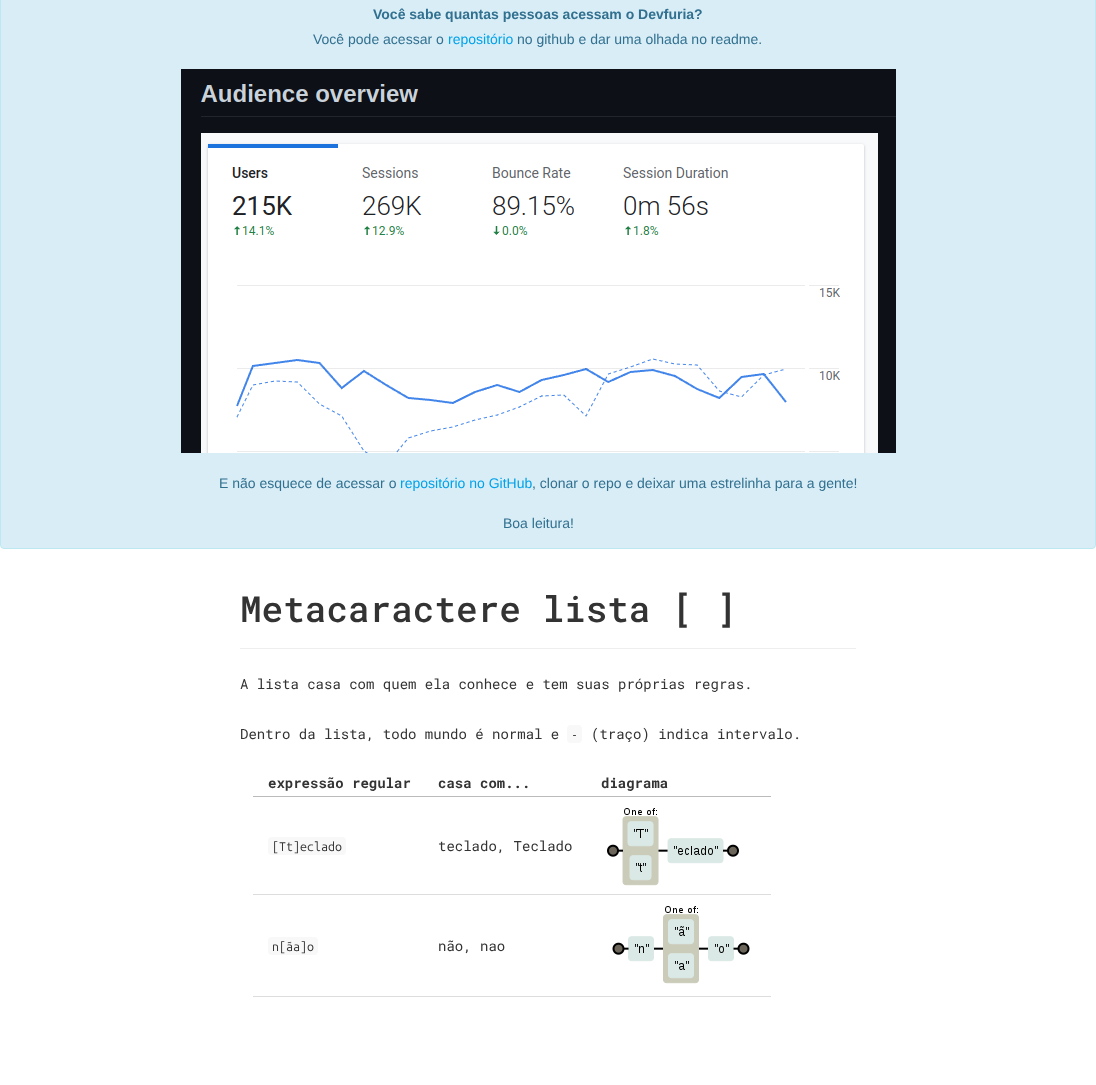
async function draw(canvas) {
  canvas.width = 1096;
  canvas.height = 1085;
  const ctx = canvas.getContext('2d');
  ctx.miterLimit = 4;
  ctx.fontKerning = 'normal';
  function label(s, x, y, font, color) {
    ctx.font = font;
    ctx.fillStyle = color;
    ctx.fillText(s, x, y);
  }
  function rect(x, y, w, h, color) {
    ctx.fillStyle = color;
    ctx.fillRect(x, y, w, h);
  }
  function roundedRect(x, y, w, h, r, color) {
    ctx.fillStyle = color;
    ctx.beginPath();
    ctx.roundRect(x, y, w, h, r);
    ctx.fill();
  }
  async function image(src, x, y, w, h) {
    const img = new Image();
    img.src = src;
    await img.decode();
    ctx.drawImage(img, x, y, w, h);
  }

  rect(0, 0, 1096, 1085, '#fff');
  ctx.fillStyle = '#d9edf7';
  ctx.beginPath();
  ctx.roundRect(0.5, -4.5, 1095, 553, 3.5);
  ctx.fill();
  ctx.strokeStyle = '#bce8f1';
  ctx.stroke();
  label('Você sabe quantas pessoas acessam o Devfuria?', 373, 19, 'bold 14px Liberation Sans', '#31708f');
  label('Você pode acessar o', 313, 44, '14px Liberation Sans', '#31708f');
  label('repositório', 448, 44, '14px Liberation Sans', '#00a2e8');
  label('no github e dar uma olhada no readme.', 517, 44, '14px Liberation Sans', '#31708f');
  await image('assets/img1.png', 181, 69, 715, 384);
  label('E não esquece de acessar o', 219, 488, '14px Liberation Sans', '#31708f');
  label('repositório no GitHub', 400, 488, '14px Liberation Sans', '#00a2e8');
  label(', clonar o repo e deixar uma estrelinha para a gente!', 532, 488, '14px Liberation Sans', '#31708f');
  label('Boa leitura!', 503, 528, '14px Liberation Sans', '#31708f');
  rect(240, 648, 616, 1, '#eee');
  label('Metacaractere lista [ ]', 240, 622, '500 36px Roboto Mono', '#333');
  label('A lista casa com quem ela conhece e tem suas próprias regras.', 240, 689, '14px Roboto Mono', '#333');
  label('Dentro da lista, todo mundo é normal e', 240, 739, '14px Roboto Mono', '#333');
  roundedRect(567, 725, 15, 18, 4, '#f8f8f8');
  label('-', 571, 739, '12.5px Ubuntu Mono', '#333');
  label('(traço) indica intervalo.', 591, 739, '14px Roboto Mono', '#333');
  label('expressão regular', 268, 788, 'bold 14px Roboto Mono', '#333');
  label('casa com...', 438, 788, 'bold 14px Roboto Mono', '#333');
  rect(253, 796, 518, 1, '#bbb');
  label('diagrama', 601, 788, 'bold 14px Roboto Mono', '#333');
  rect(253, 894, 518, 1, '#ddd');
  await image('assets/img2.png', 607, 808, 132, 78);
  roundedRect(268, 837, 78, 18, 4, '#f8f8f8');
  label('[Tt]eclado', 272, 851, '12.5px Ubuntu Mono', '#333');
  label('teclado, Teclado', 438, 851, '14px Roboto Mono', '#333');
  rect(253, 996, 518, 1, '#ddd');
  await image('assets/img3.png', 612, 906, 138, 78);
  roundedRect(268, 937, 50, 18, 4, '#f8f8f8');
  label('n[ãa]o', 272, 951, '12.5px Ubuntu Mono', '#333');
  label('não, nao', 438, 951, '14px Roboto Mono', '#333');
}

draw(document.querySelector('canvas'));
